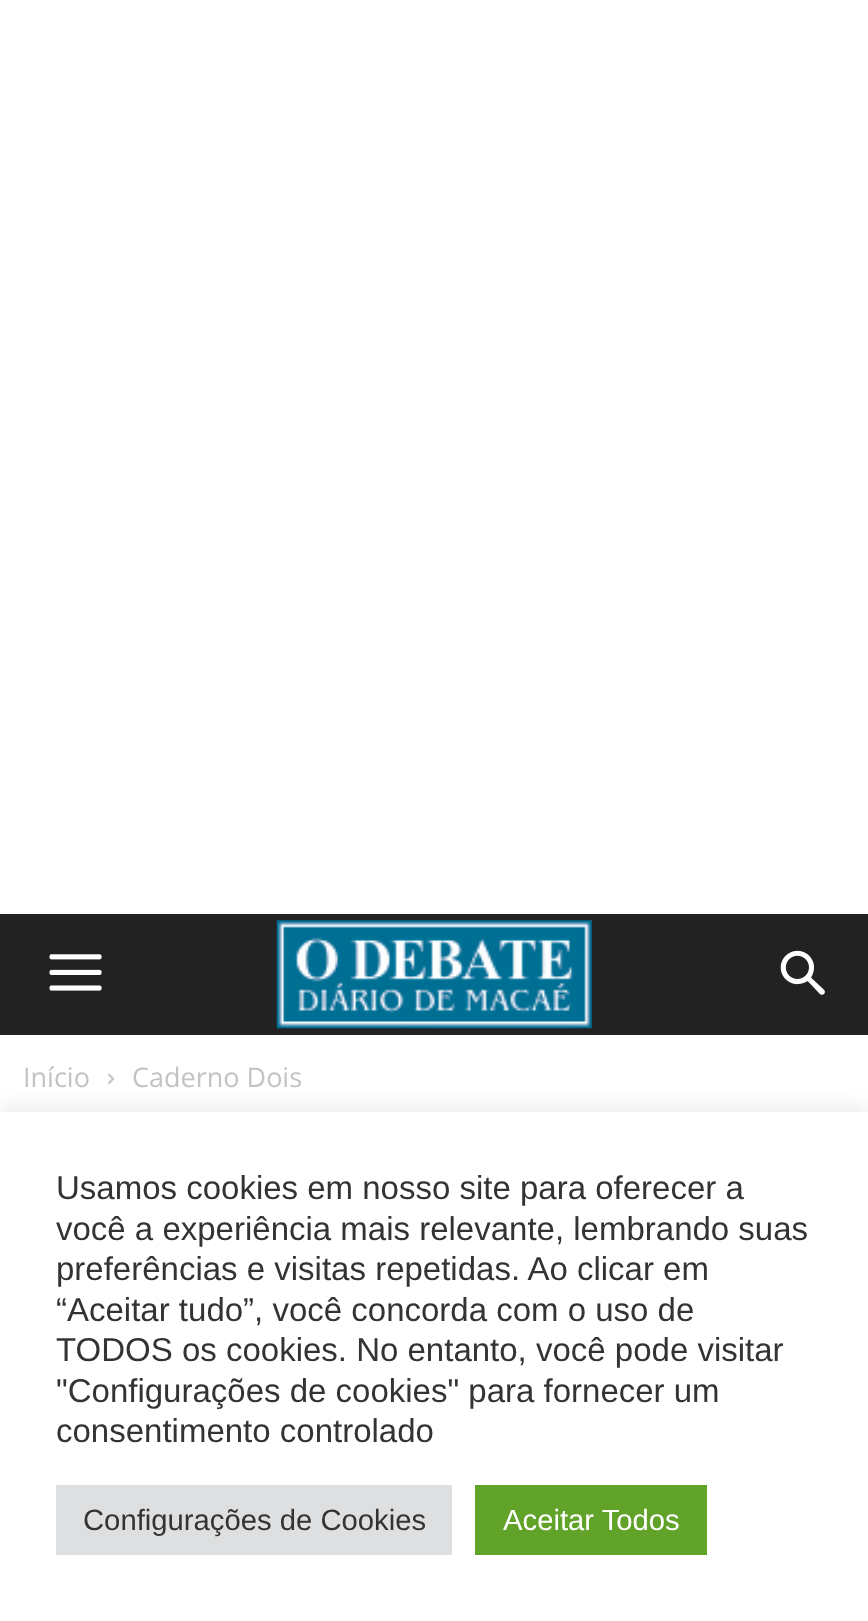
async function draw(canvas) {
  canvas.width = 868;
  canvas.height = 1621;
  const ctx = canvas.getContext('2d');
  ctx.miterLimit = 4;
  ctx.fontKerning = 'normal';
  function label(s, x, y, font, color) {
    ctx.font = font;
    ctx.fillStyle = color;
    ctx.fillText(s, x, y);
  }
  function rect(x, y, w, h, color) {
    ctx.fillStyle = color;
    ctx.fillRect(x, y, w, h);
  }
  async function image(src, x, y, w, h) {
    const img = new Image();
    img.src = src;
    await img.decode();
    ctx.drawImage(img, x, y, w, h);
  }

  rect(0, 0, 868, 1621, '#fff');
  rect(0, 914, 868, 121, '#222');
  await image('assets/img1.png', 49, 954, 53, 37);
  await image('assets/img2.png', 276, 920, 316, 109);
  await image('assets/img3.png', 780, 950, 45, 45);
  label('Início', 23, 1087, '27px Open Sans', '#c3c3c3');
  await image('assets/img4.png', 108, 1073, 6, 11);
  label('Caderno Dois', 132, 1087, '27px Open Sans', '#c3c3c3');
  ctx.fillStyle = '#acabab4d';
  ctx.filter = 'blur(11px)';
  ctx.beginPath();
  ctx.rect(0, 1109, 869, 511);
  ctx.fill();
  ctx.filter = 'none';
  rect(0, 1112, 868, 509, '#fff');
  label('Usamos cookies em nosso site para oferecer a', 56, 1199, '33px Liberation Sans', '#333');
  label('você a experiência mais relevante, lembrando suas', 56, 1240, '33px Liberation Sans', '#333');
  label('preferências e visitas repetidas. Ao clicar em', 56, 1280, '33px Liberation Sans', '#333');
  label('“Aceitar tudo”, você concorda com o uso de', 56, 1321, '33px Liberation Sans', '#333');
  label('TODOS os cookies. No entanto, você pode visitar', 56, 1361, '33px Liberation Sans', '#333');
  label('"Configurações de cookies" para fornecer um', 56, 1402, '33px Liberation Sans', '#333');
  label('consentimento controlado', 56, 1442, '33px Liberation Sans', '#333');
  rect(56, 1485, 396, 70, '#dedfe0');
  label('Configurações de Cookies', 83, 1530, '29.25px Liberation Sans', '#333');
  rect(475, 1485, 232, 70, '#61a229');
  label('Aceitar Todos', 503, 1530, '29.25px Liberation Sans', '#fff');
}

draw(document.querySelector('canvas'));
